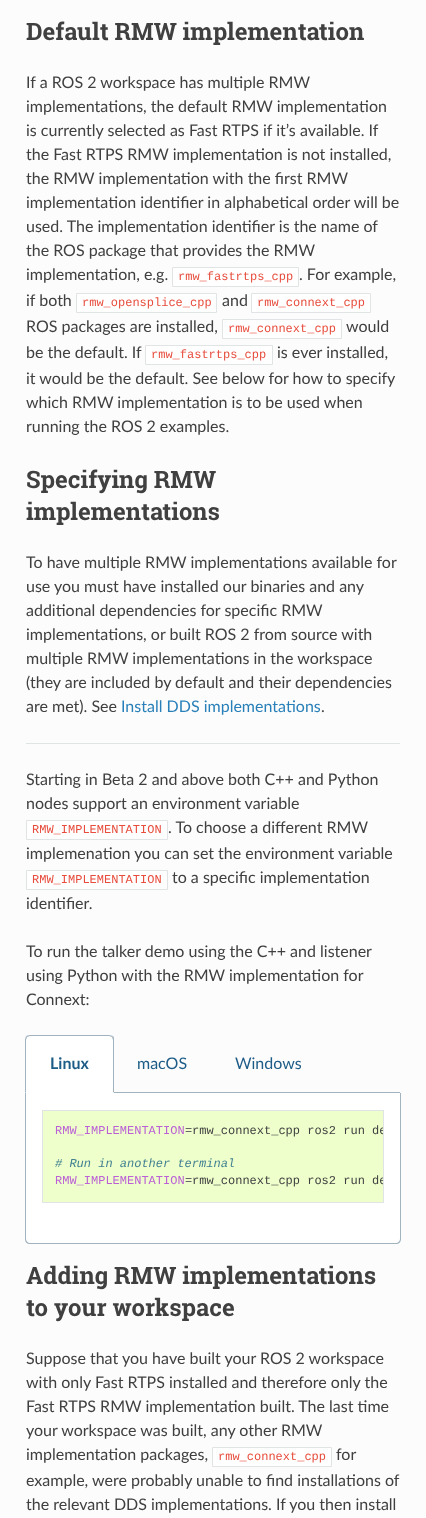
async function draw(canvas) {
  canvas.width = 426;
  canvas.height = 1518;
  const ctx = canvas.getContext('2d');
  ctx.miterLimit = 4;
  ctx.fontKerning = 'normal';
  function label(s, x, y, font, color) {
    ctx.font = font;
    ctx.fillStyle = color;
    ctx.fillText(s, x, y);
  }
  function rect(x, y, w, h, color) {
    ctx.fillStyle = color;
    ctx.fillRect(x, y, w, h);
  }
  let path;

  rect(0, 0, 426, 1518, '#fcfcfc');
  label('Default RMW implementation', 26, 40, 'bold 24px Roboto Slab', '#404040');
  label('If a ROS 2 workspace has multiple RMW', 26, 88, '16px Lato', '#404040');
  label('implementations, the default RMW implementation', 26, 112, '16px Lato', '#404040');
  label('is currently selected as Fast RTPS if it’s available. If', 26, 136, '16px Lato', '#404040');
  label('the Fast RTPS RMW implementation is not installed,', 26, 160, '16px Lato', '#404040');
  label('the RMW implementation with the first RMW', 26, 184, '16px Lato', '#404040');
  label('implementation identifier in alphabetical order will be', 26, 208, '16px Lato', '#404040');
  label('used. The implementation identifier is the name of', 26, 232, '16px Lato', '#404040');
  label('the ROS package that provides the RMW', 26, 256, '16px Lato', '#404040');
  label('implementation, e.g.', 26, 280, '16px Lato', '#404040');
  ctx.fillStyle = '#fff';
  ctx.beginPath();
  ctx.rect(172.5, 267.5, 126, 19);
  ctx.fill();
  ctx.strokeStyle = '#e1e4e5';
  ctx.stroke();
  label('rmw_fastrtps_cpp', 178, 280, '12px Liberation Mono', '#e74c3c');
  label('. For example,', 299, 280, '16px Lato', '#404040');
  label('if both', 26, 306, '16px Lato', '#404040');
  ctx.fillStyle = '#fff';
  ctx.beginPath();
  ctx.rect(76.5, 293.5, 140, 19);
  ctx.fill();
  ctx.stroke();
  label('rmw_opensplice_cpp', 82, 306, '12px Liberation Mono', '#e74c3c');
  label('and', 222, 306, '16px Lato', '#404040');
  ctx.fillStyle = '#fff';
  ctx.beginPath();
  ctx.rect(251.5, 293.5, 119, 19);
  ctx.fill();
  ctx.stroke();
  label('rmw_connext_cpp', 257, 306, '12px Liberation Mono', '#e74c3c');
  label('ROS packages are installed,', 26, 332, '16px Lato', '#404040');
  ctx.fillStyle = '#fff';
  ctx.beginPath();
  ctx.rect(222.5, 319.5, 119, 19);
  ctx.fill();
  ctx.stroke();
  label('rmw_connext_cpp', 228, 332, '12px Liberation Mono', '#e74c3c');
  label('would', 346, 332, '16px Lato', '#404040');
  label('be the default. If', 26, 358, '16px Lato', '#404040');
  ctx.fillStyle = '#fff';
  ctx.beginPath();
  ctx.rect(145.5, 345.5, 127, 19);
  ctx.fill();
  ctx.stroke();
  label('rmw_fastrtps_cpp', 151, 358, '12px Liberation Mono', '#e74c3c');
  label('is ever installed,', 277, 358, '16px Lato', '#404040');
  label('it would be the default. See below for how to specify', 26, 384, '16px Lato', '#404040');
  label('which RMW implementation is to be used when', 26, 408, '16px Lato', '#404040');
  label('running the ROS 2 examples.', 26, 432, '16px Lato', '#404040');
  label('Specifying RMW', 26, 488, 'bold 24px Roboto Slab', '#404040');
  label('implementations', 26, 520, 'bold 24px Roboto Slab', '#404040');
  label('To have multiple RMW implementations available for', 26, 568, '16px Lato', '#404040');
  label('use you must have installed our binaries and any', 26, 592, '16px Lato', '#404040');
  label('additional dependencies for specific RMW', 26, 616, '16px Lato', '#404040');
  label('implementations, or built ROS 2 from source with', 26, 640, '16px Lato', '#404040');
  label('multiple RMW implementations in the workspace', 26, 664, '16px Lato', '#404040');
  label('(they are included by default and their dependencies', 26, 688, '16px Lato', '#404040');
  label('are met). See', 26, 712, '16px Lato', '#404040');
  label('Install DDS implementations', 121, 712, '16px Lato', '#2980b9');
  label('.', 321, 712, '16px Lato', '#404040');
  rect(26, 743, 374, 1, '#e1e4e5');
  label('Starting in Beta 2 and above both C++ and Python', 26, 785, '16px Lato', '#404040');
  label('nodes support an environment variable', 26, 809, '16px Lato', '#404040');
  ctx.fillStyle = '#fff';
  ctx.beginPath();
  ctx.rect(26.5, 820.5, 141, 19);
  ctx.fill();
  ctx.stroke();
  label('RMW_IMPLEMENTATION', 32, 833, '12px Liberation Mono', '#e74c3c');
  label('. To choose a different RMW', 168, 833, '16px Lato', '#404040');
  label('implemenation you can set the environment variable', 26, 859, '16px Lato', '#404040');
  ctx.fillStyle = '#fff';
  ctx.beginPath();
  ctx.rect(26.5, 870.5, 141, 19);
  ctx.fill();
  ctx.stroke();
  label('RMW_IMPLEMENTATION', 32, 883, '12px Liberation Mono', '#e74c3c');
  label('to a specific implementation', 172, 883, '16px Lato', '#404040');
  label('identifier.', 26, 909, '16px Lato', '#404040');
  label('To run the talker demo using the C++ and listener', 26, 957, '16px Lato', '#404040');
  label('using Python with the RMW implementation for', 26, 981, '16px Lato', '#404040');
  label('Connext:', 26, 1005, '16px Lato', '#404040');
  rect(114, 1092, 286, 1, '#a0b3bf');
  ctx.fillStyle = '#fff';
  ctx.beginPath();
  ctx.roundRect(25, 1035, 89, 58, [5, 5, 0, 0]);
  ctx.fill();
  ctx.fillStyle = '#a0b3bf';
  path = new Path2D('M30 1035C28 1035 27 1036 26 1036L27 1037L30 1036H109L112 1037L113 1036C112 1036 110 1035 109 1035Z');
  ctx.fill(path);
  path = new Path2D('M114 1093V1040C114 1038 114 1037 113 1036L112 1037L113 1040V1092Z');
  ctx.fill(path);
  ctx.fillStyle = '#fff';
  path = new Path2D('M114 1093L113 1092H26L25 1093Z');
  ctx.fill(path);
  ctx.fillStyle = '#a0b3bf';
  path = new Path2D('M25 1093L26 1092V1040L27 1037L26 1036C26 1037 25 1038 25 1040Z');
  ctx.fill(path);
  label('Linux', 50, 1069, 'bold 16px Lato', '#1d5c87');
  label('macOS', 137, 1069, '16px Lato', '#1d5c87');
  label('Windows', 235, 1069, '16px Lato', '#1d5c87');
  ctx.fillStyle = '#fff';
  ctx.beginPath();
  ctx.roundRect(25, 1093, 376, 151, [0, 0, 5, 5]);
  ctx.fill();
  ctx.fillStyle = '#a0b3bf';
  path = new Path2D('M25 1093H401V1239C401 1242 399 1244 396 1244H30C27 1244 25 1242 25 1239ZM26 1093H400V1239C400 1241 398 1243 396 1243H30C28 1243 26 1241 26 1239Z');
  ctx.fill(path, 'evenodd');
  ctx.strokeRect(42.5, 1110.5, 341, 92);
  rect(43, 1111, 340, 91, '#efc');
  label('RMW_IMPLEMENTATION', 55, 1134, '12px Liberation Mono', '#bb60d5');
  label('=', 185, 1134, '12px Liberation Mono', '#666');
  label('rmw_connext_cpp ros2 run', 192, 1134, '12px Liberation Mono', '#404040');
  ctx.save();
  ctx.beginPath();
  ctx.rect(43, 1111, 340, 91);
  ctx.clip();
  label('de', 372, 1134, '12px Liberation Mono', '#404040');
  ctx.restore();
  label('# Run in another terminal', 55, 1167, 'italic 12px Liberation Mono', '#408090');
  label('RMW_IMPLEMENTATION', 55, 1184, '12px Liberation Mono', '#bb60d5');
  label('=', 185, 1184, '12px Liberation Mono', '#666');
  label('rmw_connext_cpp ros2 run', 192, 1184, '12px Liberation Mono', '#404040');
  ctx.save();
  ctx.beginPath();
  ctx.rect(43, 1111, 340, 91);
  ctx.clip();
  label('de', 372, 1184, '12px Liberation Mono', '#404040');
  ctx.restore();
  label('Adding RMW implementations', 26, 1284, 'bold 24px Roboto Slab', '#404040');
  label('to your workspace', 26, 1316, 'bold 24px Roboto Slab', '#404040');
  label('Suppose that you have built your ROS 2 workspace', 26, 1364, '16px Lato', '#404040');
  label('with only Fast RTPS installed and therefore only the', 26, 1388, '16px Lato', '#404040');
  label('Fast RTPS RMW implementation built. The last time', 26, 1412, '16px Lato', '#404040');
  label('your workspace was built, any other RMW', 26, 1436, '16px Lato', '#404040');
  label('implementation packages,', 26, 1460, '16px Lato', '#404040');
  ctx.fillStyle = '#fff';
  ctx.beginPath();
  ctx.rect(212.5, 1447.5, 119, 19);
  ctx.fill();
  ctx.stroke();
  label('rmw_connext_cpp', 218, 1460, '12px Liberation Mono', '#e74c3c');
  label('for', 336, 1460, '16px Lato', '#404040');
  label('example, were probably unable to find installations of', 26, 1486, '16px Lato', '#404040');
  label('the relevant DDS implementations. If you then install', 26, 1510, '16px Lato', '#404040');
}

draw(document.querySelector('canvas'));
